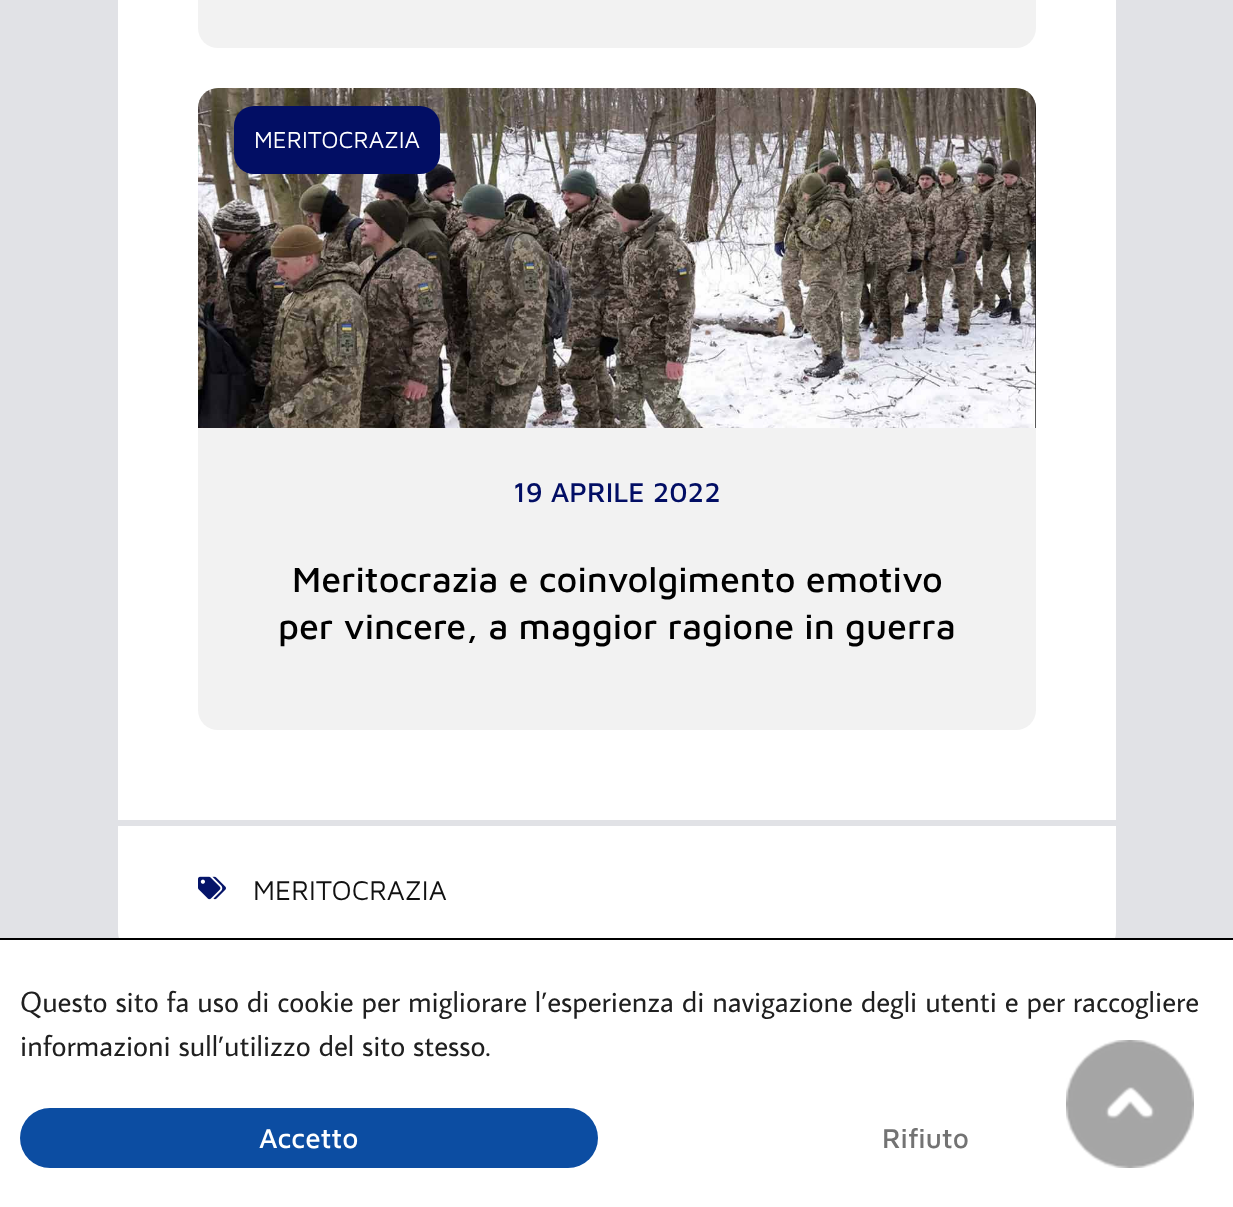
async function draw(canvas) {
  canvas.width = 1233;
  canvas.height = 1207;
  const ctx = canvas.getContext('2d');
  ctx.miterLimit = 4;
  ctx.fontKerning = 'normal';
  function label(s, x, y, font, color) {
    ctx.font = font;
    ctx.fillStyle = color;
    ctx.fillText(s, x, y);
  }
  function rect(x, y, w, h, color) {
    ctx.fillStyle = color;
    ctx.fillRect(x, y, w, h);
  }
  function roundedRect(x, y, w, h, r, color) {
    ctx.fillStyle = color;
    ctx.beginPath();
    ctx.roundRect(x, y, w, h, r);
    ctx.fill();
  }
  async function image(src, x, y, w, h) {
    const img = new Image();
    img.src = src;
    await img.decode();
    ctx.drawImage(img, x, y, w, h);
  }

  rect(0, 0, 1233, 1207, '#e1e2e6');
  roundedRect(118, -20, 998, 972, 20, '#fff');
  roundedRect(198, -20, 838, 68, 20, '#f2f2f2');
  roundedRect(198, 88, 838, 642, 20, '#f2f2f2');
  await image('assets/img1.png', 198, 88, 838, 340);
  roundedRect(234, 106, 206, 68, 20, '#020e64');
  label('MERITOCRAZIA', 254, 148, '24px Maven Pro', '#fff');
  label('19 APRILE 2022', 513, 502, '500 28px Maven Pro', '#020e64');
  label('Meritocrazia e coinvolgimento emotivo', 292, 592, '500 36px Maven Pro', '#000');
  label('per vincere, a maggior ragione in guerra', 278, 639, '500 36px Maven Pro', '#000');
  rect(118, 820, 998, 6, '#e1e2e6');
  await image('assets/img2.png', 198, 876, 28, 24);
  label('MERITOCRAZIA', 253, 900, '28px Maven Pro', '#111');
  rect(0, 940, 1233, 267, '#fff');
  rect(0, 938, 1233, 2, '#000');
  label('Questo sito fa uso di cookie per migliorare l’esperienza di navigazione degli utenti e per raccogliere', 20, 1012, '29.2px Average Sans', '#202020');
  label('informazioni sull’utilizzo del sito stesso.', 20, 1056, '29.2px Average Sans', '#202020');
  roundedRect(20, 1108, 578, 60, 30, '#0c4da2');
  label('Accetto', 259, 1148, '500 28px Maven Pro', '#fff');
  label('Rifiuto', 882, 1148, '500 28px Maven Pro', '#737373');
  await image('assets/img3.png', 1066, 1040, 128, 128);
}

draw(document.querySelector('canvas'));
